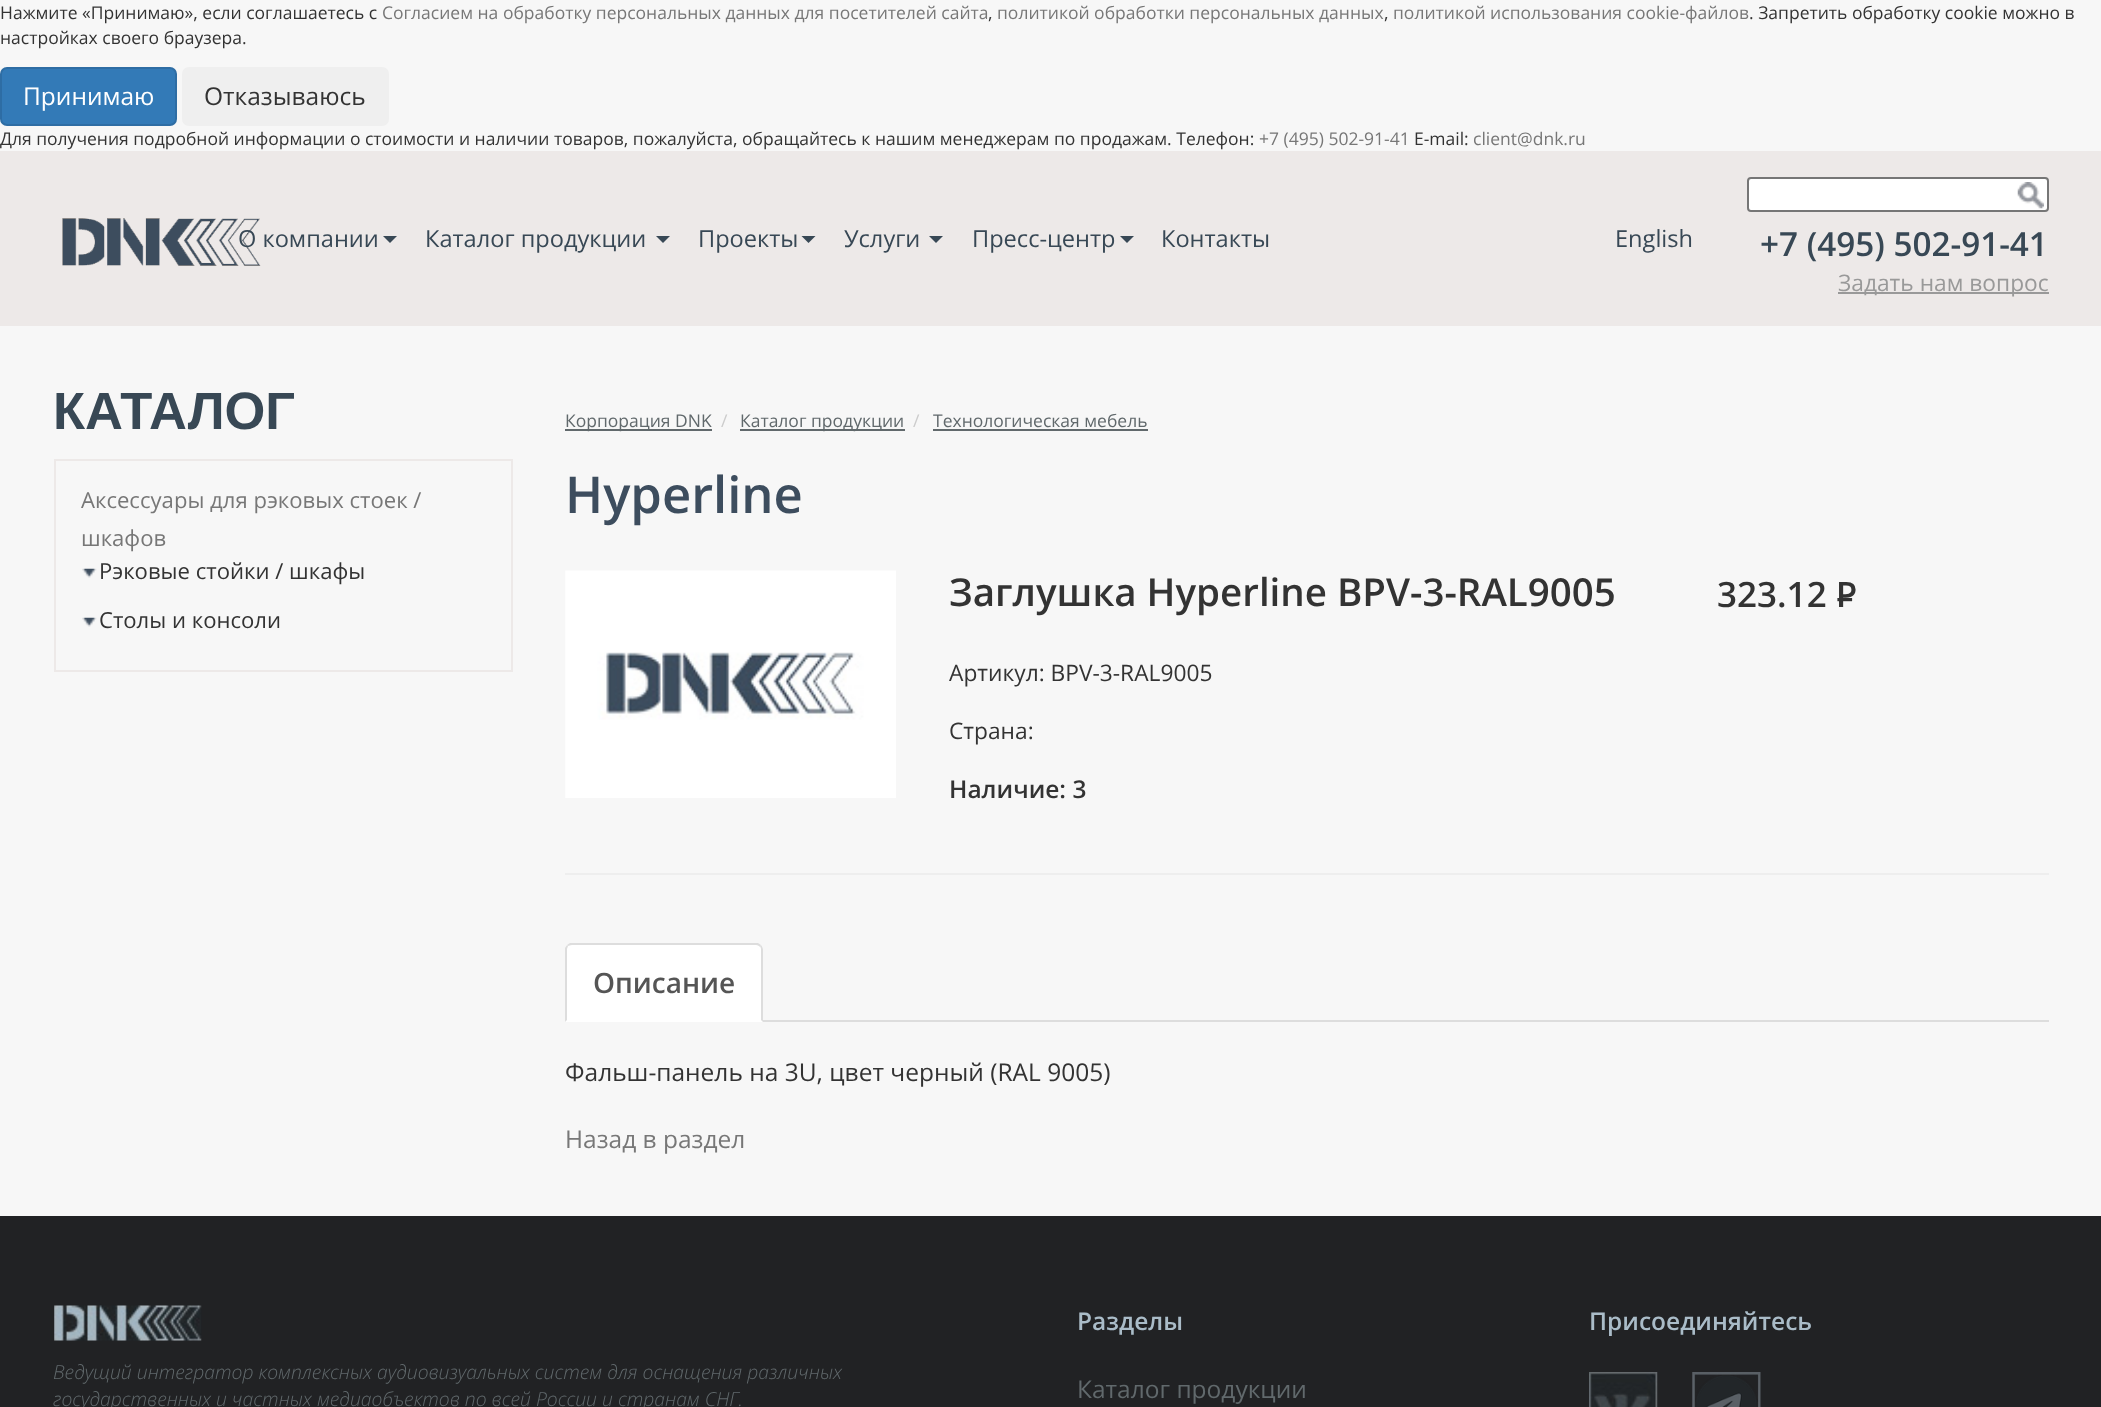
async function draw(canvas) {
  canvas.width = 2101;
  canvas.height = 1407;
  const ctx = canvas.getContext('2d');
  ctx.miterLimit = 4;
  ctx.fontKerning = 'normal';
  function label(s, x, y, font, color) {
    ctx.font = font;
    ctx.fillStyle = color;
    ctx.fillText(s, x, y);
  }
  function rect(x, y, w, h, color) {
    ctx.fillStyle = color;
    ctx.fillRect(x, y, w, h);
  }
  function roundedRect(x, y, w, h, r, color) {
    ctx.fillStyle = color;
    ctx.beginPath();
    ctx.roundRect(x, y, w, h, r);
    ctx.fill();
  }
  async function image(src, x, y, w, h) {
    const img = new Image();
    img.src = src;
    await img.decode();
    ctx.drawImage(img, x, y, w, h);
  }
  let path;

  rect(0, 0, 2101, 1407, '#f7f7f7');
  label('Нажмите «Принимаю», если соглашаетесь с', 0, 19, '17.5px Open Sans', '#333');
  label('Согласием на обработку персональных данных для посетителей сайта', 382, 19, '17.5px Open Sans', '#777');
  label(',', 988, 19, '17.5px Open Sans', '#333');
  label('политикой обработки персональных данных', 997, 19, '17.5px Open Sans', '#777');
  label(',', 1384, 19, '17.5px Open Sans', '#333');
  label('политикой использования cookie-файлов', 1393, 19, '17.5px Open Sans', '#777');
  label('. Запретить обработку cookie можно в', 1749, 19, '17.5px Open Sans', '#333');
  label('настройках своего браузера.', 0, 44, '17.5px Open Sans', '#333');
  ctx.fillStyle = '#337ab7';
  ctx.beginPath();
  ctx.roundRect(1, 68, 175, 57, 6);
  ctx.fill();
  ctx.strokeStyle = '#2e6da4';
  ctx.lineWidth = 2;
  ctx.stroke();
  label('Принимаю', 23, 105, '24.5px Open Sans', '#fff');
  roundedRect(182, 67, 207, 59, 7, '#efefef');
  label('Отказываюсь', 204, 105, '24.5px Open Sans', '#333');
  label('Для получения подробной информации о стоимости и наличии товаров, пожалуйста, обращайтесь к нашим менеджерам по продажам. Телефон:', 0, 145, '17.5px Open Sans', '#333');
  label('+7 (495) 502-91-41', 1259, 145, '17.5px Open Sans', '#777');
  label('E-mail:', 1414, 145, '17.5px Open Sans', '#333');
  label('client@dnk.ru', 1473, 145, '17.5px Open Sans', '#777');
  rect(0, 151, 2101, 175, '#ede9e8');
  await image('assets/img1.png', 62, 218, 199, 48);
  label('О компании', 238, 247, '23.6px Open Sans', '#384855');
  path = new Path2D('M383 236H397L390 243Z');
  ctx.fill(path);
  label('Каталог продукции', 425, 247, '23.6px Open Sans', '#384855');
  path = new Path2D('M656 236H670L663 243Z');
  ctx.fill(path);
  label('Проекты', 698, 247, '23.6px Open Sans', '#384855');
  path = new Path2D('M801.5 236H815.5L808.5 243Z');
  ctx.fill(path);
  label('Услуги', 844, 247, '23.6px Open Sans', '#384855');
  path = new Path2D('M929 236H943L936 243Z');
  ctx.fill(path);
  label('Пресс-центр', 972, 247, '23.6px Open Sans', '#384855');
  path = new Path2D('M1120 236H1134L1127 243Z');
  ctx.fill(path);
  label('Контакты', 1161, 247, '23.6px Open Sans', '#384855');
  ctx.fillStyle = '#fff';
  ctx.beginPath();
  ctx.roundRect(1748, 178, 300, 33, 3);
  ctx.fill();
  ctx.strokeStyle = '#767676';
  ctx.stroke();
  await image('assets/img2.png', 2017, 182, 27, 27);
  label('English', 1615, 247, '23.6px Open Sans', '#384855');
  label('+7 (495) 502-91-41', 1760, 256, '600 33.25px Open Sans', '#384855');
  rect(1838, 292, 211, 2, '#999');
  label('Задать нам вопрос', 1838, 291, '22.75px Open Sans', '#999');
  label('КАТАЛОГ', 53, 429, 'bold 52.5px Liberation Sans', '#384855');
  rect(565, 429, 147, 2, '#61696c');
  label('Корпорация DNK', 565, 427, '17.5px Open Sans', '#61696c');
  label('/', 721, 427, '17.5px Open Sans', '#ccc');
  rect(740, 429, 165, 2, '#61696c');
  label('Каталог продукции', 740, 427, '17.5px Open Sans', '#61696c');
  label('/', 913, 427, '17.5px Open Sans', '#ccc');
  label('Технологическая мебель', 933, 427, '17.5px Open Sans', '#61696c');
  rect(933, 429, 215, 2, '#61696c');
  ctx.strokeStyle = '#ede9e8';
  ctx.strokeRect(55, 460, 457, 211);
  label('Аксессуары для рэковых стоек /', 81, 508, '22.1px Open Sans', '#777');
  label('шкафов', 81, 546, '22.1px Open Sans', '#777');
  await image('assets/img3.png', 82, 568, 15, 10);
  label('Рэковые стойки / шкафы', 99, 579, '22.1px Open Sans', '#333');
  await image('assets/img3.png', 82, 617, 15, 10);
  label('Столы и консоли', 99, 628, '22.1px Open Sans', '#333');
  label('Hyperline', 565, 513, '600 50.75px Open Sans', '#3d4d5e');
  await image('assets/img4.png', 565, 570, 331, 228);
  label('Заглушка Hyperline BPV-3-RAL9005', 949, 606, '600 38.5px Open Sans', '#333');
  label('Артикул: BPV-3-RAL9005', 949, 681, '22.75px Open Sans', '#333');
  label('Страна:', 949, 739, '22.75px Open Sans', '#333');
  label('Наличие: 3', 949, 798, '600 24.5px Open Sans', '#333');
  label('323.12 P', 1717, 607, '600 35px Open Sans', '#333');
  label('–', 1836, 609, '600 35px Open Sans', '#333');
  rect(565, 873, 1484, 2, '#eee');
  rect(763, 1020, 1286, 2, '#ddd');
  ctx.fillStyle = '#fff';
  ctx.beginPath();
  ctx.roundRect(565, 943, 198, 79, [7, 7, 0, 0]);
  ctx.fill();
  ctx.fillStyle = '#ddd';
  path = new Path2D('M572 945C570 945 569 946 568 946L567 945L570 943H758L761 945L760 947C759 946 758 945 756 945Z');
  ctx.fill(path);
  path = new Path2D('M763 1022V950C763 948 762 946 761 945L760 947C761 947 761 949 761 950V1020Z');
  ctx.fill(path);
  path = new Path2D('M565 1022V948L567 945L568 946L567 949V1020Z');
  ctx.fill(path);
  label('Описание', 593, 993, '600 28px Open Sans', '#555');
  label('Фальш-панель на 3U, цвет черный (RAL 9005)', 565, 1081, '24.5px Open Sans', '#333');
  label('Назад в раздел', 565, 1148, '24.5px Open Sans', '#777');
  rect(0, 1216, 2101, 191, '#212224');
  await image('assets/img5.png', 54, 1305, 148, 36);
  label('Ведущий интегратор комплексных аудиовизуальных систем для оснащения различных', 53, 1379, 'italic 300 19.35px Open Sans', '#61696c');
  label('государственных и частных медиаобъектов по всей России и странам СНГ.', 53, 1406, 'italic 300 19.35px Open Sans', '#61696c');
  label('Разделы', 1077, 1330, '600 24.5px Open Sans', '#aabcc8');
  label('Каталог продукции', 1077, 1398, '24.5px Open Sans', '#61696c');
  label('Присоединяйтесь', 1589, 1330, '600 24.5px Open Sans', '#aabcc8');
  await image('assets/img6.png', 1589, 1372, 69, 35);
  await image('assets/img7.png', 1692, 1372, 69, 35);
}

draw(document.querySelector('canvas'));
